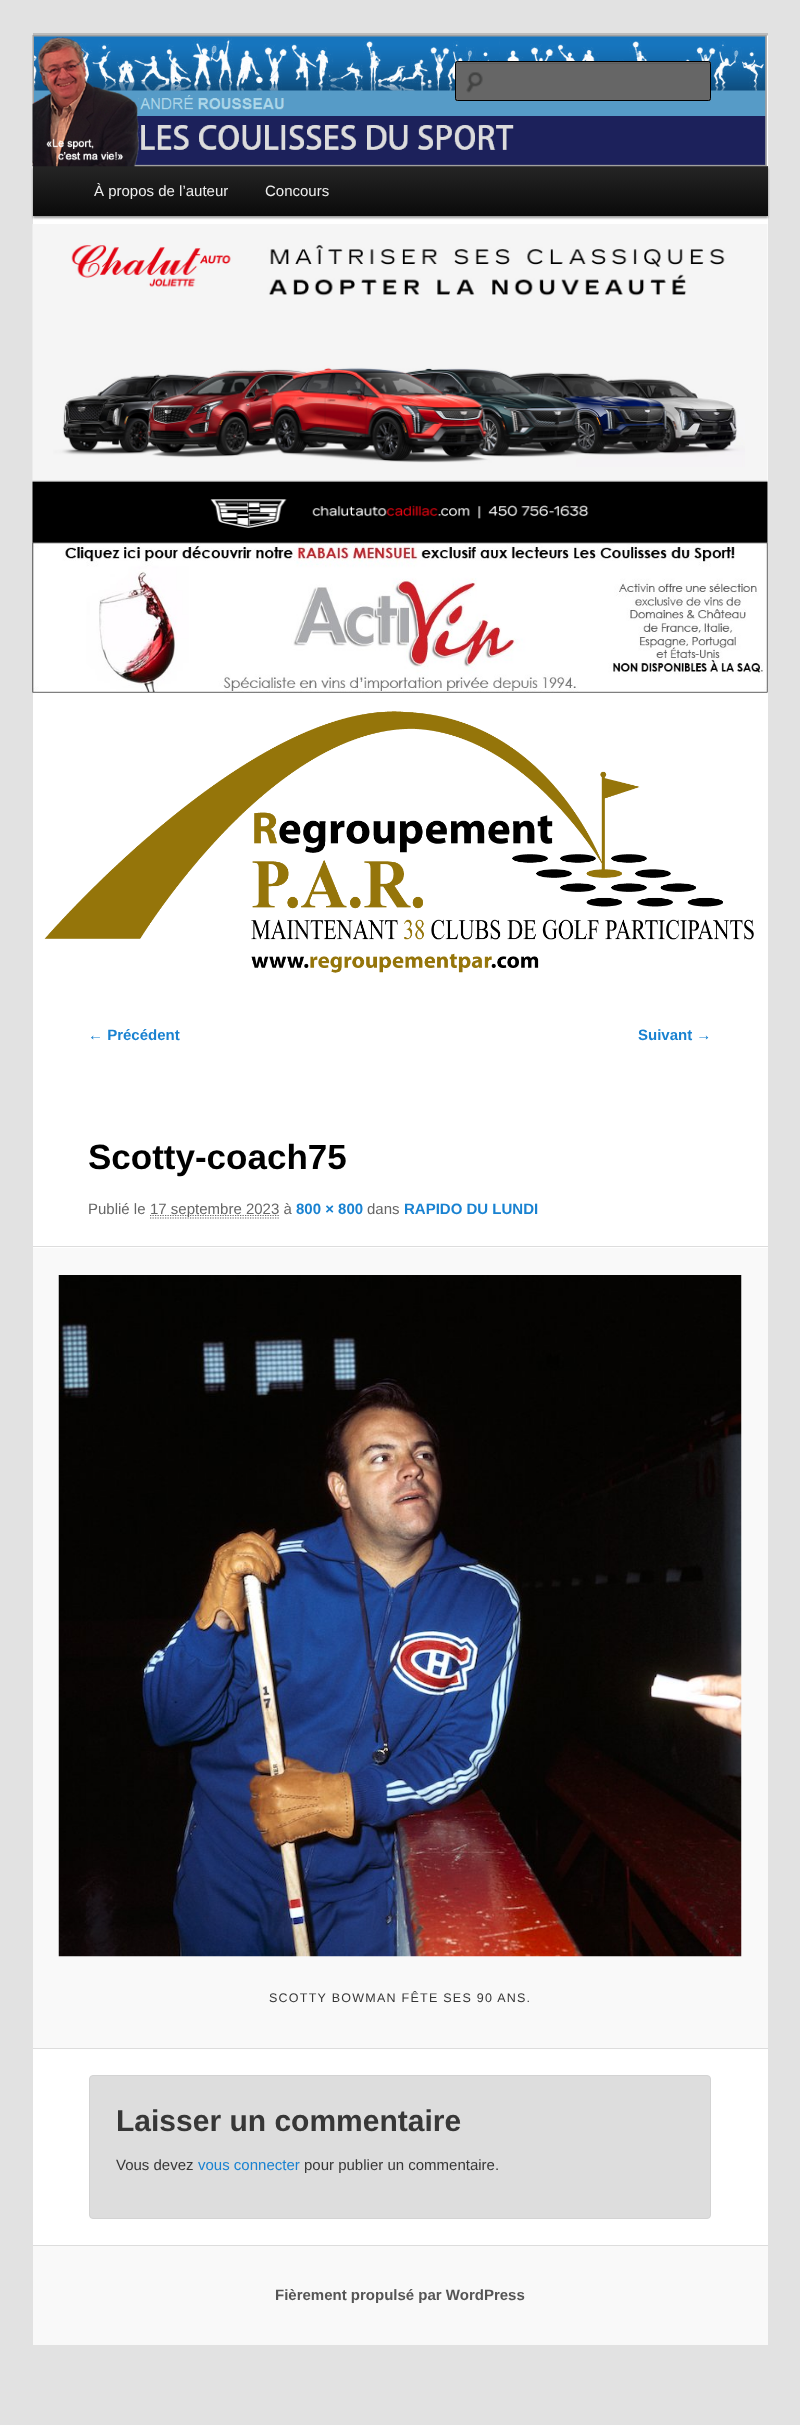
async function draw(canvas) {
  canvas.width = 800;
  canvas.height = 2425;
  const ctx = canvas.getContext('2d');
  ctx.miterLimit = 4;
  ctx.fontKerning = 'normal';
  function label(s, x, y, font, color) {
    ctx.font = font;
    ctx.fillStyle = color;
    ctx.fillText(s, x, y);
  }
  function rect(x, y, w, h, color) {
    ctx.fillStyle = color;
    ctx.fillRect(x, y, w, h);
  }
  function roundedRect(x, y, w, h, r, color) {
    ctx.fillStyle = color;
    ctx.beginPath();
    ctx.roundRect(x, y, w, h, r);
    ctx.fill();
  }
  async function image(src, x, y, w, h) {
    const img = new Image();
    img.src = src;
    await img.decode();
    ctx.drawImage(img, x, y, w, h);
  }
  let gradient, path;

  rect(0, 0, 800, 2425, '#e2e2e2');
  rect(33, 36, 735, 2209, '#fff');
  rect(33, 33, 735, 3, '#bbb');
  ctx.fillStyle = '#00000066';
  ctx.filter = 'blur(1px)';
  ctx.beginPath();
  ctx.rect(33, 168, 735, 50);
  ctx.fill();
  ctx.filter = 'none';
  gradient = ctx.createLinearGradient(400, 166, 400, 216);
  gradient.addColorStop(0, '#252525');
  gradient.addColorStop(1, '#0a0a0a');
  ctx.fillStyle = gradient;
  ctx.fillRect(33, 166, 735, 50);
  await image('assets/img1.png', 32, 35, 736, 132);
  roundedRect(455, 61, 256, 40, 2.5, '#666');
  await image('assets/img2.png', 466, 72, 17, 21);
  ctx.fillStyle = '#5c5c5c';
  path = new Path2D('M458 64H709L710 65V63H457C456 63 456 64 456 65C456 64 457 64 458 64Z');
  ctx.fill(path);
  ctx.beginPath();
  ctx.roundRect(455.5, 61.5, 255, 39, 2);
  ctx.strokeStyle = '#000';
  ctx.stroke();
  label('À propos de l’auteur', 94, 196, '15px Liberation Sans', '#eee');
  label('Concours', 265, 196, '15px Liberation Sans', '#eee');
  await image('assets/img3.png', 32, 224, 736, 319);
  await image('assets/img4.png', 32, 542, 736, 151);
  await image('assets/img5.png', 44, 711, 710, 262);
  label('← Précédent', 88, 1040, 'bold 15px Liberation Sans', '#1982d1');
  label('Suivant →', 638, 1040, 'bold 15px Liberation Sans', '#1982d1');
  label('Scotty-coach75', 88, 1169, 'bold 35px Liberation Sans', '#000');
  label('Publié le', 88, 1214, '15px Liberation Sans', '#666');
  path = new Path2D('M150 1218H279');
  ctx.strokeStyle = '#666';
  ctx.lineWidth = 1.2;
  ctx.setLineDash([1.25, 1.25]);
  ctx.stroke(path);
  path = new Path2D('M150 1215.5H279.5');
  ctx.stroke(path);
  label('17 septembre 2023 à', 150, 1214, '15px Liberation Sans', '#666');
  label('800 × 800', 296, 1214, 'bold 15px Liberation Sans', '#1982d1');
  label('dans', 367, 1214, '15px Liberation Sans', '#666');
  label('RAPIDO DU LUNDI', 404, 1214, 'bold 15px Liberation Sans', '#1982d1');
  rect(33, 1248, 735, 800, '#f9f9f9');
  rect(33, 1246, 735, 1, '#ddd');
  rect(33, 2048, 735, 1, '#ddd');
  await image('assets/img6.png', 58, 1275, 684, 682);
  ctx.letterSpacing = '1.25px';
  label('SCOTTY BOWMAN FÊTE SES 90 ANS.', 269, 2002, '12.5px Liberation Sans', '#373737');
  ctx.fillStyle = '#ddd';
  ctx.beginPath();
  ctx.roundRect(89.5, 2075.5, 621, 143, 3.5);
  ctx.fill();
  ctx.strokeStyle = '#d3d3d3';
  ctx.lineWidth = 1;
  ctx.setLineDash([]);
  ctx.stroke();
  ctx.letterSpacing = '0px';
  label('Laisser un commentaire', 116, 2131, 'bold 30px Liberation Sans', '#373737');
  label('Vous devez', 116, 2170, '15px Liberation Sans', '#373737');
  label('vous connecter', 198, 2170, '15px Liberation Sans', '#1982d1');
  label('pour publier un commentaire.', 304, 2170, '15px Liberation Sans', '#373737');
  rect(33, 2246, 735, 99, '#f9f9f9');
  rect(33, 2245, 735, 1, '#ddd');
  label('Fièrement propulsé par WordPress', 275, 2300, 'bold 15px Liberation Sans', '#555');
}

draw(document.querySelector('canvas'));
